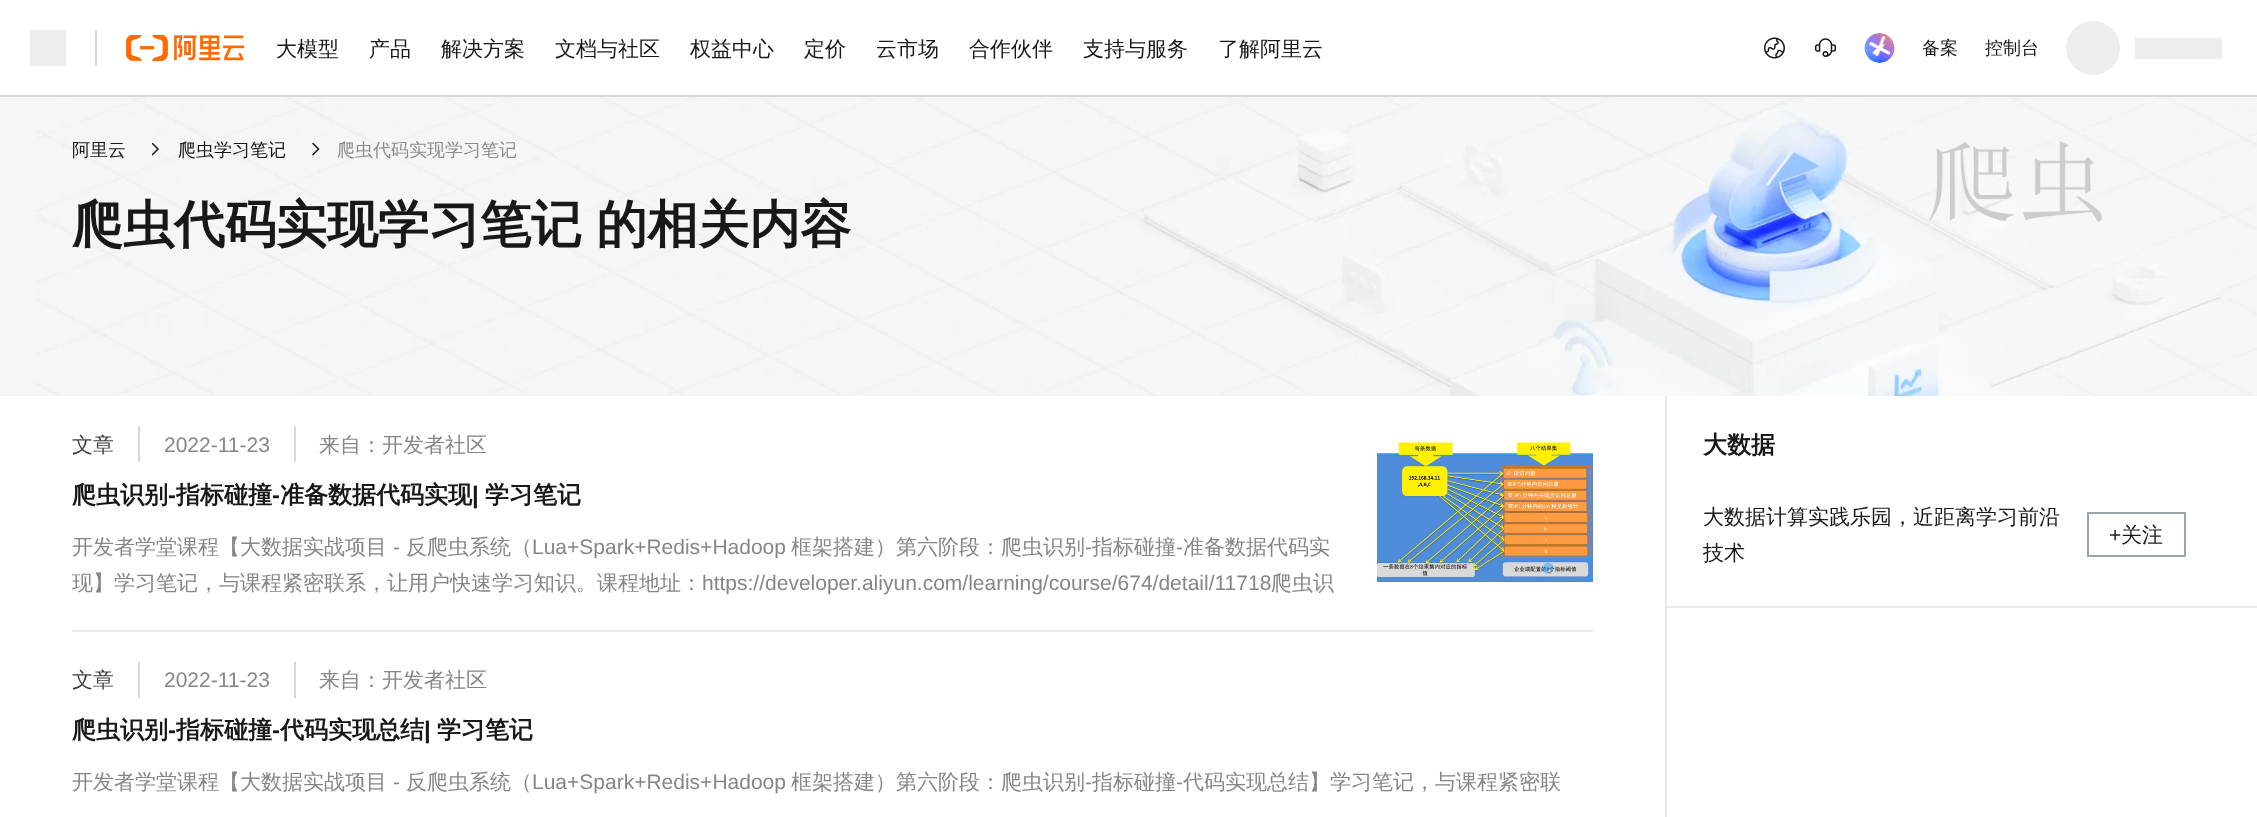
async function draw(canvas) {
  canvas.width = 2257;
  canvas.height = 817;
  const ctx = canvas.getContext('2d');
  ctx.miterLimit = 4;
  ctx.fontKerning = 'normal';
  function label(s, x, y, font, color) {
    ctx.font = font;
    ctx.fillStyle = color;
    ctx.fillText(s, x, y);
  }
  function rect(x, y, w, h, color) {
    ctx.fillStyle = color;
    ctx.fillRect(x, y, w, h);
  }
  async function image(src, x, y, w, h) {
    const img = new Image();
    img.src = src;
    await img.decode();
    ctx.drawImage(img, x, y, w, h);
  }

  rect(0, 0, 2257, 817, '#fff');
  rect(0, 95, 2257, 2, '#d7d8d9');
  rect(30, 30, 36, 36, '#ededed');
  rect(95, 30, 2, 36, '#d8d8d8');
  await image('assets/img1.png', 126, 35, 119, 26);
  label('大模型', 276, 56, '500 21px WenQuanYi Zen Hei', '#181818');
  label('产品', 369, 56, '500 21px WenQuanYi Zen Hei', '#181818');
  label('解决方案', 441, 56, '500 21px WenQuanYi Zen Hei', '#181818');
  label('文档与社区', 555, 56, '500 21px WenQuanYi Zen Hei', '#181818');
  label('权益中心', 690, 56, '500 21px WenQuanYi Zen Hei', '#181818');
  label('定价', 804, 56, '500 21px WenQuanYi Zen Hei', '#181818');
  label('云市场', 876, 56, '500 21px WenQuanYi Zen Hei', '#181818');
  label('合作伙伴', 969, 56, '500 21px WenQuanYi Zen Hei', '#181818');
  label('支持与服务', 1083, 56, '500 21px WenQuanYi Zen Hei', '#181818');
  label('了解阿里云', 1218, 56, '500 21px WenQuanYi Zen Hei', '#181818');
  await image('assets/img2.png', 1764, 37, 21, 22);
  await image('assets/img3.png', 1815, 38, 21, 19);
  await image('assets/img4.png', 1864, 33, 31, 30);
  await image('assets/img5.png', 1868, 36, 23, 21);
  label('备案', 1922, 54, '500 18px WenQuanYi Zen Hei', '#181818');
  label('控制台', 1985, 54, '500 18px WenQuanYi Zen Hei', '#181818');
  ctx.fillStyle = '#ededed';
  ctx.beginPath();
  ctx.arc(2093, 48, 27, 0, 2 * Math.PI);
  ctx.fill();
  rect(2135, 38, 87, 21, '#ededed');
  rect(0, 97, 36, 299, '#f6f6f6');
  await image('assets/img6.png', 36, 97, 2221, 299);
  label('阿里云', 72, 156, '500 18px WenQuanYi Zen Hei', '#181818');
  await image('assets/img7.png', 152, 143, 7, 13);
  label('爬虫学习笔记', 178, 156, '500 18px WenQuanYi Zen Hei', '#181818');
  await image('assets/img8.png', 312, 143, 8, 13);
  label('爬虫代码实现学习笔记', 337, 156, '500 18px WenQuanYi Zen Hei', '#8c8c8c');
  ctx.wordSpacing = '-1px';
  label('爬虫代码实现学习笔记 的相关内容', 72, 242, 'bold 51px WenQuanYi Zen Hei', '#181818');
  await image('assets/img9.png', 1929, 141, 174, 81);
  rect(1665, 396, 2, 421, '#e9e9e9');
  rect(72, 630, 1521, 2, '#e9e9e9');
  rect(138, 426, 2, 36, '#d7d8d9');
  ctx.wordSpacing = '0px';
  label('文章', 72, 452, '500 21px WenQuanYi Zen Hei', '#3d3d3d');
  rect(294, 426, 2, 36, '#d7d8d9');
  label('2022-11-23', 164, 452, '21px Liberation Sans', '#868686');
  label('来自：开发者社区', 319, 452, '500 21px WenQuanYi Zen Hei', '#868686');
  label('爬虫识别', 72, 503, 'bold 24px WenQuanYi Zen Hei', '#181818');
  label('-', 168, 503, 'bold 24px Liberation Sans', '#181818');
  label('指标碰撞', 176, 503, 'bold 24px WenQuanYi Zen Hei', '#181818');
  label('-', 272, 503, 'bold 24px Liberation Sans', '#181818');
  label('准备数据代码实现', 280, 503, 'bold 24px WenQuanYi Zen Hei', '#181818');
  label('|', 472, 503, 'bold 24px Liberation Sans', '#181818');
  label('学习笔记', 485, 503, 'bold 24px WenQuanYi Zen Hei', '#181818');
  label('开发者学堂课程【大数据实战项目', 72, 554, '500 21px WenQuanYi Zen Hei', '#868686');
  label('-', 393, 554, '21px Liberation Sans', '#868686');
  label('反爬虫系统（', 406, 554, '500 21px WenQuanYi Zen Hei', '#868686');
  label('Lua+Spark+Redis+Hadoop', 532, 554, '21px Liberation Sans', '#868686');
  label('框架搭建）第六阶段：爬虫识别', 791, 554, '500 21px WenQuanYi Zen Hei', '#868686');
  label('-', 1085, 554, '21px Liberation Sans', '#868686');
  label('指标碰撞', 1092, 554, '500 21px WenQuanYi Zen Hei', '#868686');
  label('-', 1176, 554, '21px Liberation Sans', '#868686');
  label('准备数据代码实', 1183, 554, '500 21px WenQuanYi Zen Hei', '#868686');
  label('现】学习笔记，与课程紧密联系，让用户快速学习知识。课程地址：', 72, 590, '500 21px WenQuanYi Zen Hei', '#868686');
  label('https://developer.aliyun.com/learning/course/674/detail/11718', 702, 590, '21px Liberation Sans', '#868686');
  label('爬虫识', 1271, 590, '500 21px WenQuanYi Zen Hei', '#868686');
  await image('assets/img10.png', 1377, 442, 216, 140);
  rect(138, 662, 2, 36, '#d7d8d9');
  label('文章', 72, 687, '500 21px WenQuanYi Zen Hei', '#3d3d3d');
  rect(294, 662, 2, 36, '#d7d8d9');
  label('2022-11-23', 164, 687, '21px Liberation Sans', '#868686');
  label('来自：开发者社区', 319, 687, '500 21px WenQuanYi Zen Hei', '#868686');
  label('爬虫识别', 72, 738, 'bold 24px WenQuanYi Zen Hei', '#181818');
  label('-', 168, 738, 'bold 24px Liberation Sans', '#181818');
  label('指标碰撞', 176, 738, 'bold 24px WenQuanYi Zen Hei', '#181818');
  label('-', 272, 738, 'bold 24px Liberation Sans', '#181818');
  label('代码实现总结', 280, 738, 'bold 24px WenQuanYi Zen Hei', '#181818');
  label('|', 424, 738, 'bold 24px Liberation Sans', '#181818');
  label('学习笔记', 437, 738, 'bold 24px WenQuanYi Zen Hei', '#181818');
  label('开发者学堂课程【大数据实战项目', 72, 789, '500 21px WenQuanYi Zen Hei', '#868686');
  label('-', 393, 789, '21px Liberation Sans', '#868686');
  label('反爬虫系统（', 406, 789, '500 21px WenQuanYi Zen Hei', '#868686');
  label('Lua+Spark+Redis+Hadoop', 532, 789, '21px Liberation Sans', '#868686');
  label('框架搭建）第六阶段：爬虫识别', 791, 789, '500 21px WenQuanYi Zen Hei', '#868686');
  label('-', 1085, 789, '21px Liberation Sans', '#868686');
  label('指标碰撞', 1092, 789, '500 21px WenQuanYi Zen Hei', '#868686');
  label('-', 1176, 789, '21px Liberation Sans', '#868686');
  label('代码实现总结】学习笔记，与课程紧密联', 1183, 789, '500 21px WenQuanYi Zen Hei', '#868686');
  rect(1667, 606, 590, 2, '#e9e9e9');
  label('大数据', 1703, 453, 'bold 24px WenQuanYi Zen Hei', '#181818');
  label('大数据计算实践乐园，近距离学习前沿', 1703, 524, '500 21px WenQuanYi Zen Hei', '#181818');
  ctx.save();
  ctx.beginPath();
  ctx.rect(1703, 498, 366, 72);
  ctx.clip();
  label('技术', 1703, 560, '500 21px WenQuanYi Zen Hei', '#181818');
  ctx.restore();
  ctx.strokeStyle = '#9ca4af';
  ctx.lineWidth = 2;
  ctx.strokeRect(2088, 513, 97, 43);
  label('+', 2109, 542, '21px Liberation Sans', '#181818');
  label('关注', 2121, 542, '500 21px WenQuanYi Zen Hei', '#181818');
}

draw(document.querySelector('canvas'));
